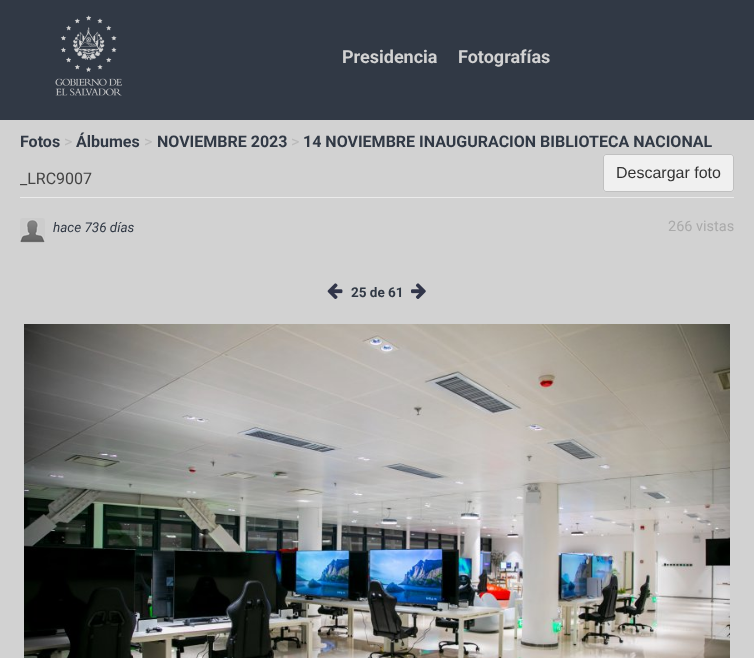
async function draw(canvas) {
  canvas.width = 754;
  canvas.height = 658;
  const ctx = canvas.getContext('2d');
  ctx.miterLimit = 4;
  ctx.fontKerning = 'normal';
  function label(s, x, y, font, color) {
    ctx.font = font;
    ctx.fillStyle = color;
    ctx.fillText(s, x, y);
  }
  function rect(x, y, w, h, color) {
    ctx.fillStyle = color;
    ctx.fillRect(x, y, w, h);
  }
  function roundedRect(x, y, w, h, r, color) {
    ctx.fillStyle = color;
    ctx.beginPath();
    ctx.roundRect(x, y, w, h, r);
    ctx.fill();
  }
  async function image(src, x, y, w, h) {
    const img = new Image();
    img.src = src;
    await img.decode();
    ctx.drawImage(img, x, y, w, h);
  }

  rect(0, 0, 754, 658, '#d2d2d2');
  rect(0, 0, 754, 120, '#313945');
  await image('assets/img1.png', 55, 15, 67, 81);
  label('Presidencia', 342, 63, 'bold 18px Roboto', '#d2d2d2');
  label('Fotografías', 458, 63, 'bold 18px Roboto', '#d2d2d2');
  label('Fotos', 20, 147, 'bold 16px Roboto', '#313945');
  label('>', 64, 147, '16px Roboto', '#bababa');
  label('Álbumes', 76, 147, 'bold 16px Roboto', '#313945');
  label('>', 144, 147, '16px Roboto', '#bababa');
  label('NOVIEMBRE 2023', 157, 147, 'bold 16px Roboto', '#313945');
  label('>', 291, 147, '16px Roboto', '#bababa');
  label('14 NOVIEMBRE INAUGURACION BIBLIOTECA NACIONAL', 303, 147, 'bold 16px Roboto', '#313945');
  rect(20, 197, 714, 1, '#ebebeb');
  label('_LRC9007', 20, 184, '16px Roboto', '#444');
  roundedRect(603, 154, 131, 38, 3, '#f0f0f0');
  ctx.beginPath();
  ctx.roundRect(603.5, 154.5, 130, 37, 2.5);
  ctx.strokeStyle = '#00000033';
  ctx.stroke();
  label('Descargar foto', 616, 178, '16px Liberation Sans', '#333');
  await image('assets/img2.png', 20, 218, 25, 25);
  label('hace 736 días', 53, 232, 'italic 13.5px Roboto', '#313945');
  label('266 vistas', 668, 231, '14.5px Roboto', '#aaa');
  await image('assets/img3.png', 327, 283, 16, 16);
  label('25 de 61', 351, 297, 'bold 13.5px Roboto', '#313945');
  await image('assets/img4.png', 411, 283, 15, 16);
  await image('assets/img5.png', 24, 324, 706, 334);
}

draw(document.querySelector('canvas'));
